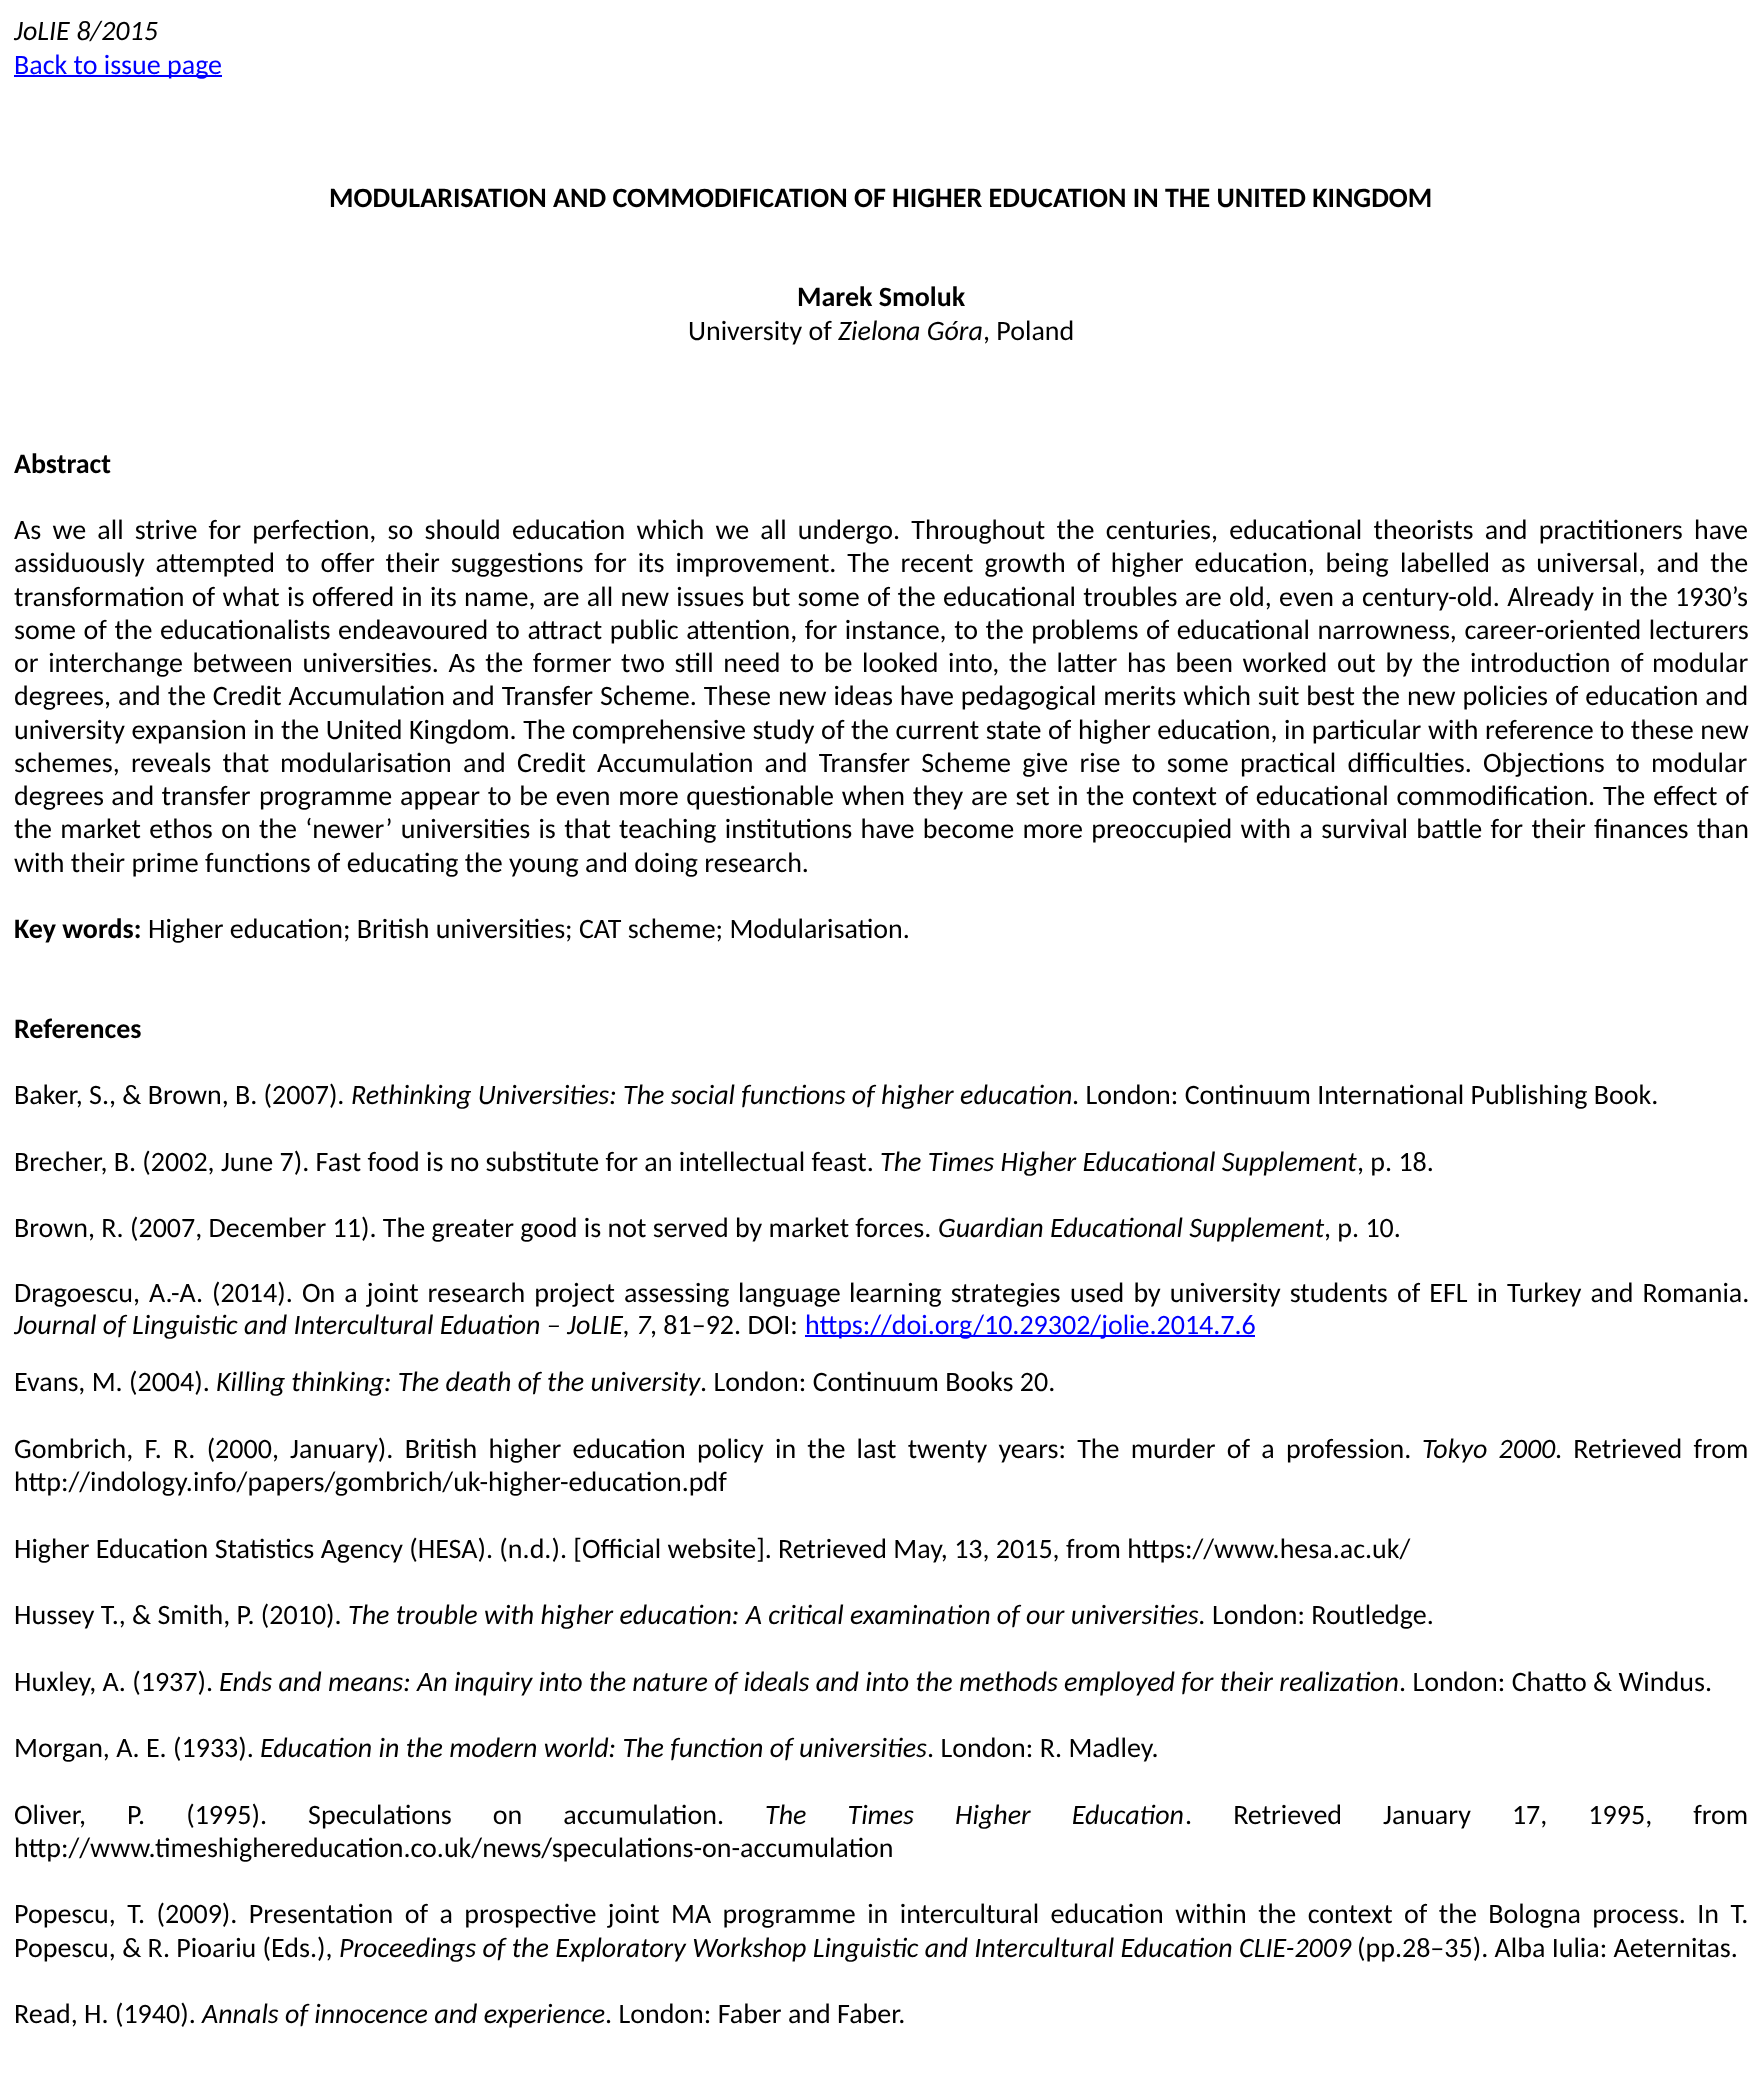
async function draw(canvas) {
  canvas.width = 1762;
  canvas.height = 2076;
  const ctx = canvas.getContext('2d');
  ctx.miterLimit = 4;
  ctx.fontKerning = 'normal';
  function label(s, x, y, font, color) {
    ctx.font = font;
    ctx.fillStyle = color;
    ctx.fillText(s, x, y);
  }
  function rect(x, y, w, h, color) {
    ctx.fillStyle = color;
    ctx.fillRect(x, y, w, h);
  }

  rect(0, 0, 1762, 2076, '#fff');
  label('JoLIE 8/2015', 14, 40, 'italic 28px Carlito', '#000');
  rect(14, 75, 208, 2, '#00f');
  label('Back to issue page', 14, 74, '28px Carlito', '#00f');
  label('MODULARISATION AND COMMODIFICATION OF HIGHER EDUCATION IN THE UNITED KINGDOM', 329, 207, 'bold 28px Carlito', '#000');
  label('Marek Smoluk', 797, 306, 'bold 28px Carlito', '#000');
  label('University of', 688, 340, '28px Carlito', '#000');
  label('Zielona Góra', 838, 340, 'italic 28px Carlito', '#000');
  label(', Poland', 983, 340, '28px Carlito', '#000');
  label('Abstract', 14, 473, 'bold 28px Carlito', '#000');
  ctx.wordSpacing = '4.9px';
  label('As we all strive for perfection, so should education which we all undergo. Throughout the centuries, educational theorists and practitioners have', 14, 539, '28px Carlito', '#000');
  ctx.wordSpacing = '4.6px';
  label('assiduously attempted to offer their suggestions for its improvement. The recent growth of higher education, being', 14, 572, '28px Carlito', '#000');
  ctx.wordSpacing = '0px';
  label('labelled', 1400, 572, '28px Carlito', '#000');
  ctx.wordSpacing = '4.6px';
  label('as universal, and the', 1501, 572, '28px Carlito', '#000');
  ctx.wordSpacing = '1px';
  label('transformation of what is offered in its name, are all new issues but some of the educational troubles are old, even a century-old. Already in the 1930’s', 14, 606, '28px Carlito', '#000');
  ctx.wordSpacing = '1.25px';
  label('some of the educationalists', 14, 639, '28px Carlito', '#000');
  ctx.wordSpacing = '0px';
  label('endeavoured', 338, 639, '28px Carlito', '#000');
  ctx.wordSpacing = '1.25px';
  label('to attract public attention, for instance, to the problems of educational narrowness, career-oriented lecturers', 496, 639, '28px Carlito', '#000');
  ctx.wordSpacing = '3.3px';
  label('or interchange between universities. As the former two still need to be looked into, the latter has been worked out by the introduction of', 14, 672, '28px Carlito', '#000');
  ctx.wordSpacing = '0px';
  label('modular', 1652, 672, '28px Carlito', '#000');
  ctx.wordSpacing = '0.65px';
  label('degrees, and the Credit Accumulation and Transfer Scheme. These new ideas have pedagogical merits which suit best the new policies of education and', 14, 705, '28px Carlito', '#000');
  ctx.wordSpacing = '0.25px';
  label('university expansion in the United Kingdom. The comprehensive study of the current state of higher education, in particular with reference to these new', 14, 739, '28px Carlito', '#000');
  ctx.wordSpacing = '4.9px';
  label('schemes, reveals that', 14, 772, '28px Carlito', '#000');
  ctx.wordSpacing = '0px';
  label('modularisation', 280, 772, '28px Carlito', '#000');
  ctx.wordSpacing = '4.9px';
  label('and Credit Accumulation and Transfer Scheme give rise to some practical difficulties. Objections to modular', 463, 772, '28px Carlito', '#000');
  ctx.wordSpacing = '1px';
  label('degrees and transfer', 14, 805, '28px Carlito', '#000');
  ctx.wordSpacing = '0px';
  label('programme', 259, 805, '28px Carlito', '#000');
  ctx.wordSpacing = '1.4px';
  label('appear to be even more questionable when they are set in the context of educational commodification. The effect of', 400, 805, '28px Carlito', '#000');
  ctx.wordSpacing = '2px';
  label('the market ethos on the ‘newer’ universities is that teaching institutions have become more preoccupied with a survival battle for their finances than', 14, 838, '28px Carlito', '#000');
  ctx.wordSpacing = '0px';
  label('with their prime functions of educating the young and doing research.', 14, 872, '28px Carlito', '#000');
  label('Key words:', 14, 938, 'bold 28px Carlito', '#000');
  label('Higher education; British universities; CAT scheme; Modularisation.', 148, 938, '28px Carlito', '#000');
  label('References', 14, 1038, 'bold 28px Carlito', '#000');
  label('Baker, S., & Brown, B. (2007).', 14, 1104, '28px Carlito', '#000');
  label('Rethinking Universities: The social functions of higher education', 351, 1104, 'italic 28px Carlito', '#000');
  label('. London: Continuum International Publishing Book.', 1072, 1104, '28px Carlito', '#000');
  label('Brecher, B. (2002, June 7). Fast food is no substitute for an intellectual feast.', 14, 1171, '28px Carlito', '#000');
  label('The Times Higher Educational Supplement', 880, 1171, 'italic 28px Carlito', '#000');
  label(', p. 18.', 1357, 1171, '28px Carlito', '#000');
  label('Brown, R. (2007, December 11). The greater good is not served by market forces.', 14, 1237, '28px Carlito', '#000');
  label('Guardian Educational Supplement', 938, 1237, 'italic 28px Carlito', '#000');
  label(', p. 10.', 1324, 1237, '28px Carlito', '#000');
  ctx.wordSpacing = '2.75px';
  label('Dragoescu, A.-A.', 14, 1302, '28px Carlito', '#000');
  ctx.wordSpacing = '0px';
  label('(2014).', 212, 1302, '28px Carlito', '#000');
  ctx.wordSpacing = '2.75px';
  label('On a joint research project assessing', 302, 1302, '28px Carlito', '#000');
  ctx.wordSpacing = '0px';
  label('language', 738, 1302, '28px Carlito', '#000');
  ctx.wordSpacing = '2.75px';
  label('learning strategies', 849, 1302, '28px Carlito', '#000');
  label('used by university students of EFL in Turkey and Romania.', 1070, 1302, '28px Carlito', '#000');
  ctx.wordSpacing = '0px';
  label('Journal of Linguistic and Intercultural Eduation – JoLIE, 7', 14, 1334, 'italic 28px Carlito', '#000');
  label(', 81–92. DOI:', 650, 1334, '28px Carlito', '#000');
  rect(805, 1335, 450, 2, '#00f');
  label('https://doi.org/10.29302/jolie.2014.7.6', 805, 1334, '28px Carlito', '#00f');
  label('Evans, M. (2004).', 14, 1391, '28px Carlito', '#000');
  label('Killing thinking: The death of the university', 216, 1391, 'italic 28px Carlito', '#000');
  label('. London: Continuum Books 20.', 700, 1391, '28px Carlito', '#000');
  ctx.wordSpacing = '4.9px';
  label('Gombrich, F. R. (2000, January). British higher education policy in the last twenty years: The murder of a profession.', 14, 1458, '28px Carlito', '#000');
  label('Tokyo 2000', 1422, 1458, 'italic 28px Carlito', '#000');
  label('. Retrieved from', 1555, 1458, '28px Carlito', '#000');
  ctx.wordSpacing = '0px';
  label('http://indology.info/papers/gombrich/uk-higher-education.pdf', 14, 1491, '28px Carlito', '#000');
  label('Higher Education Statistics Agency (HESA). (n.d.). [Official website]. Retrieved May, 13, 2015, from https://www.hesa.ac.uk/', 14, 1558, '28px Carlito', '#000');
  label('Hussey T., & Smith, P. (2010).', 14, 1624, '28px Carlito', '#000');
  label('The trouble with higher education: A critical examination of our universities.', 348, 1624, 'italic 28px Carlito', '#000');
  label('London: Routledge.', 1212, 1624, '28px Carlito', '#000');
  label('Huxley, A. (1937).', 14, 1691, '28px Carlito', '#000');
  label('Ends and means: An inquiry into the nature of ideals and into the methods employed for their realization', 219, 1691, 'italic 28px Carlito', '#000');
  label('. London: Chatto & Windus.', 1399, 1691, '28px Carlito', '#000');
  label('Morgan, A. E. (1933).', 14, 1757, '28px Carlito', '#000');
  label('Education in the modern world: The function of universities', 260, 1757, 'italic 28px Carlito', '#000');
  label('. London: R. Madley.', 927, 1757, '28px Carlito', '#000');
  ctx.wordSpacing = '34.75px';
  label('Oliver, P. (1995). Speculations on accumulation.', 14, 1824, '28px Carlito', '#000');
  label('The Times Higher Education', 765, 1824, 'italic 28px Carlito', '#000');
  label('. Retrieved January 17, 1995, from', 1185, 1824, '28px Carlito', '#000');
  ctx.wordSpacing = '0px';
  label('http://www.timeshighereducation.co.uk/news/speculations-on-accumulation', 14, 1857, '28px Carlito', '#000');
  ctx.wordSpacing = '5.1px';
  label('Popescu, T. (2009). Presentation of a prospective joint MA programme in intercultural education within the context of the Bologna process. In T.', 14, 1923, '28px Carlito', '#000');
  ctx.wordSpacing = '0px';
  label('Popescu, & R. Pioariu (Eds.),', 14, 1957, '28px Carlito', '#000');
  label('Proceedings of the Exploratory Workshop Linguistic and Intercultural Education CLIE-2009', 339, 1957, 'italic 28px Carlito', '#000');
  label('(pp.28–35). Alba Iulia: Aeternitas.', 1357, 1957, '28px Carlito', '#000');
  label('Read, H. (1940).', 14, 2023, '28px Carlito', '#000');
  label('Annals of innocence and experience', 202, 2023, 'italic 28px Carlito', '#000');
  label('. London: Faber and Faber.', 605, 2023, '28px Carlito', '#000');
}

draw(document.querySelector('canvas'));
